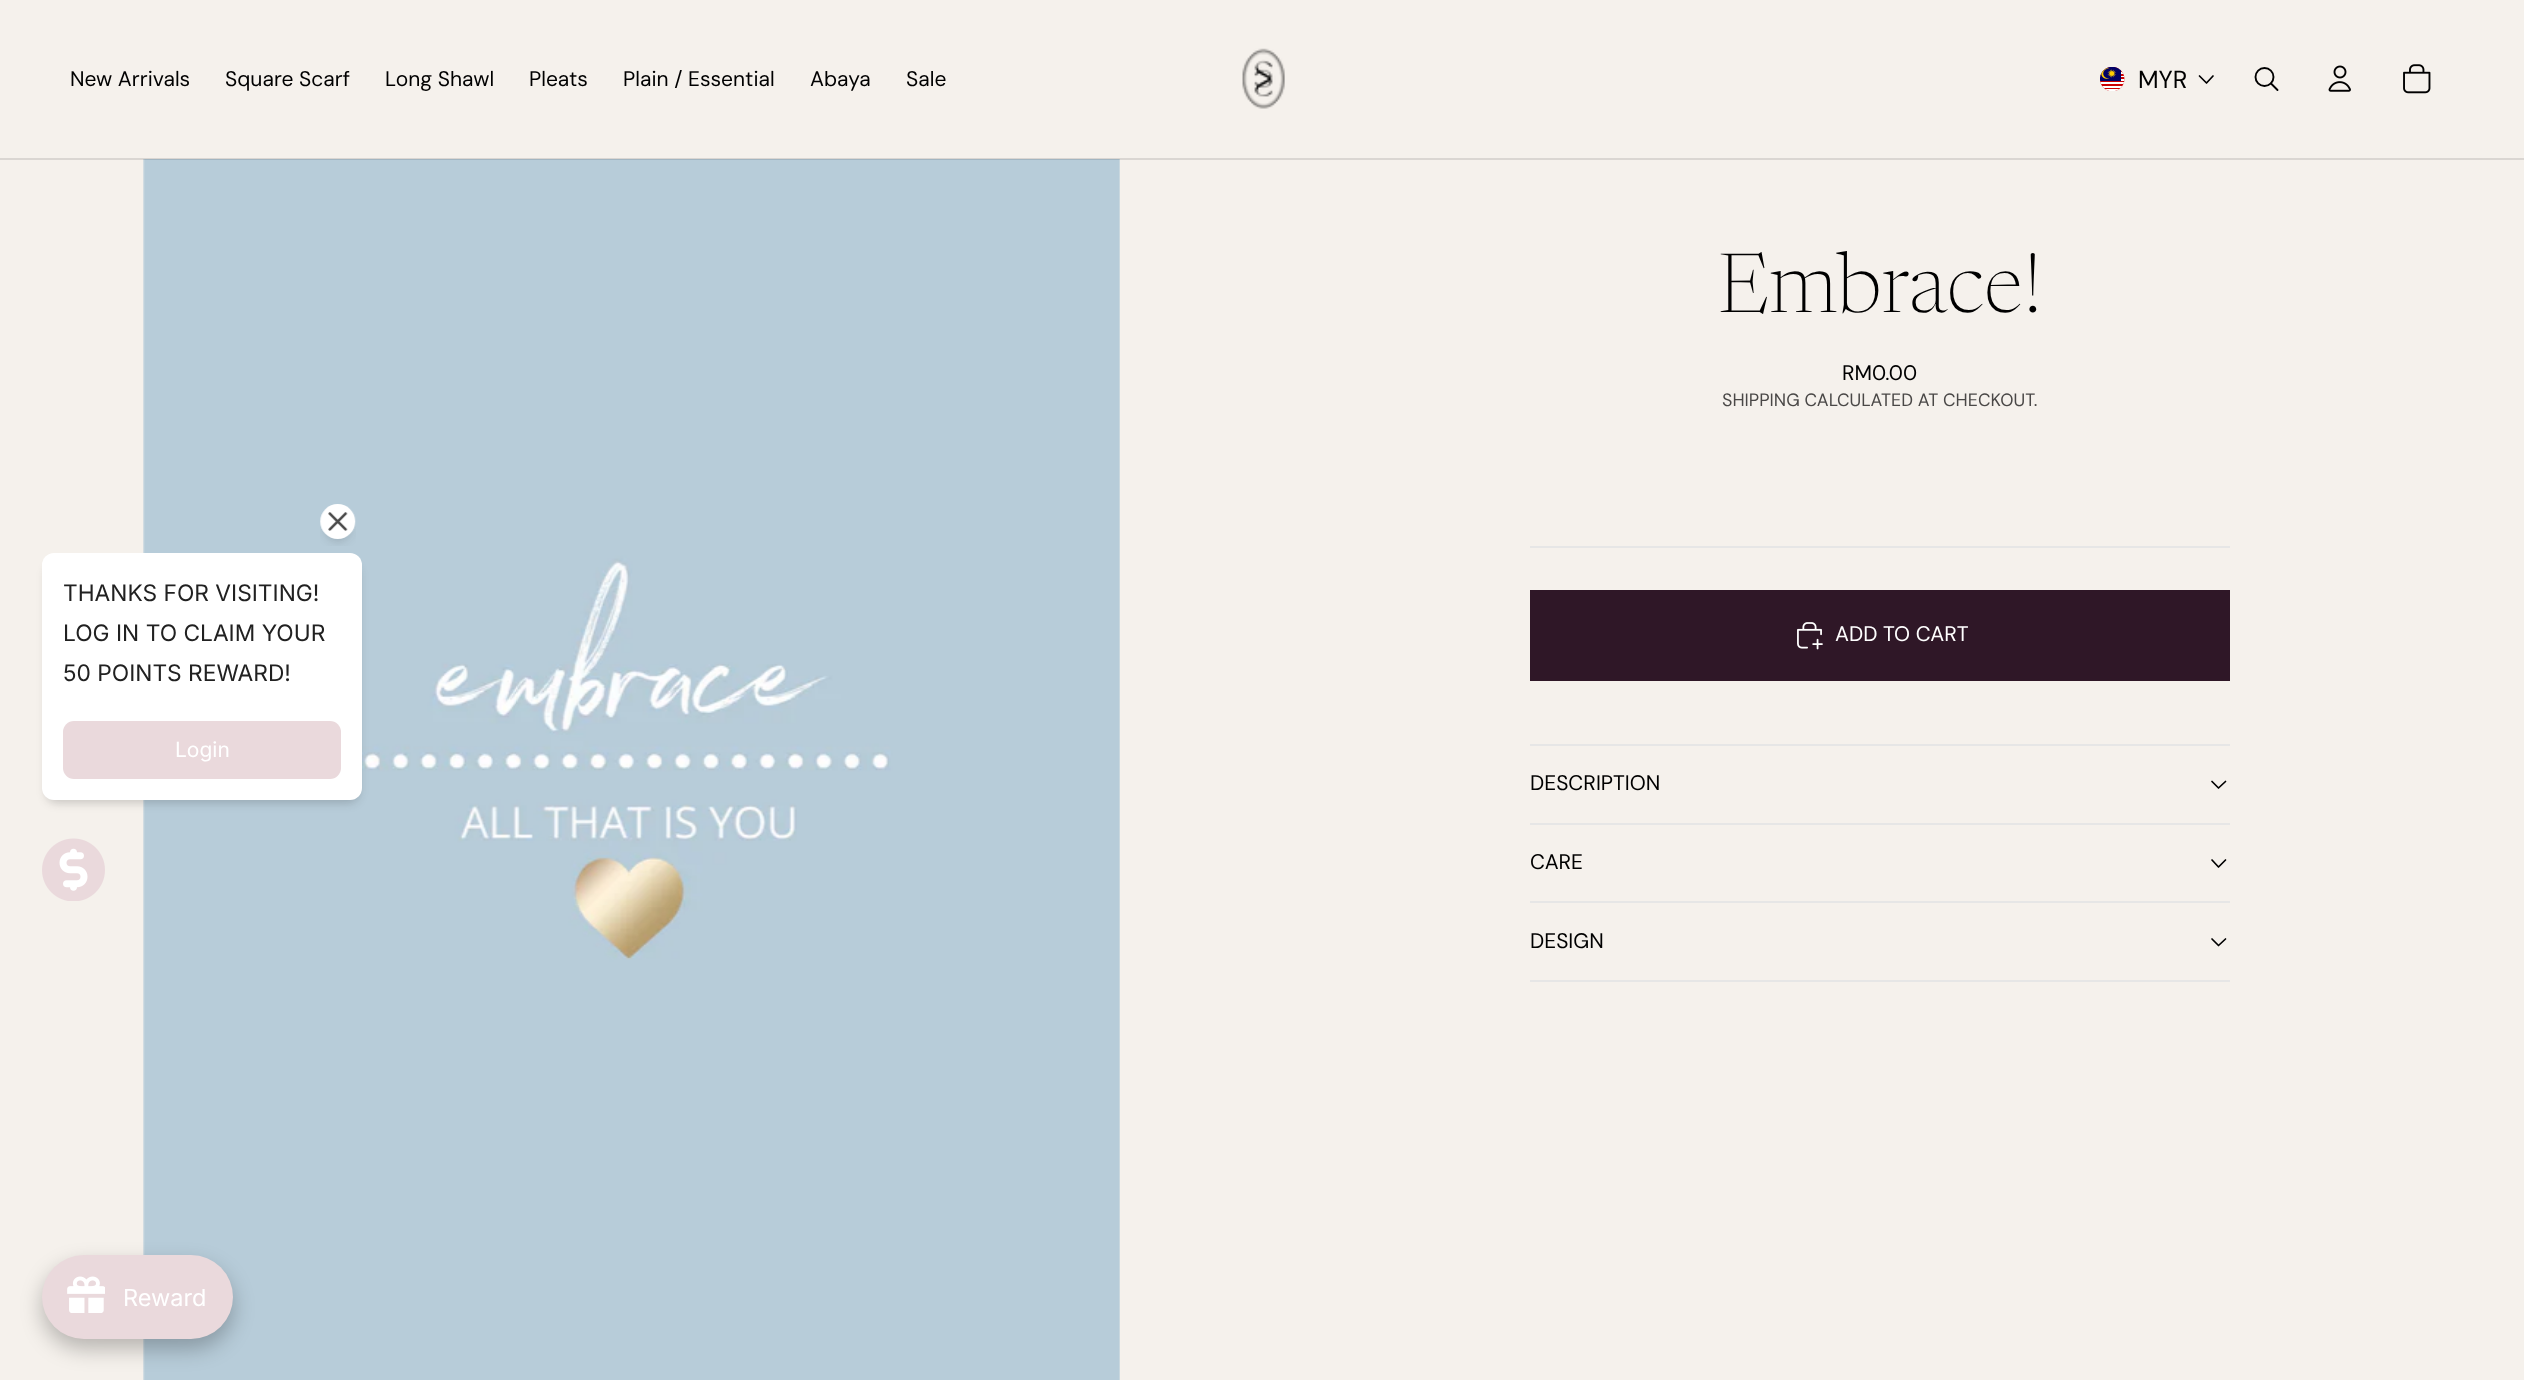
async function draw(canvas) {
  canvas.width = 2524;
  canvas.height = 1380;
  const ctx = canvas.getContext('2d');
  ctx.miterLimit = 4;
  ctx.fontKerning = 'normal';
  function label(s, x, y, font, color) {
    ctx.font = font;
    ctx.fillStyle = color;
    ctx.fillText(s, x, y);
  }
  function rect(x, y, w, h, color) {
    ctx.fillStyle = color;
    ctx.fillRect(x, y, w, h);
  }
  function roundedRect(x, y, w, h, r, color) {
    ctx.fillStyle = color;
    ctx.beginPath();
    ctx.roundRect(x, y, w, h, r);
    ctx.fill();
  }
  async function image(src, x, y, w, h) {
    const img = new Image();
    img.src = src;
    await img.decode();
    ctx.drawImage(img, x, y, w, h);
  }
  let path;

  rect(0, 0, 2524, 1380, '#f5f1ec');
  await image('assets/img8.png', 143, 159, 977, 1221);
  rect(0, 158, 2524, 2, '#0000001c');
  label('New Arrivals', 70, 86, '21px DM Sans', '#000');
  label('Square Scarf', 225, 86, '21px DM Sans', '#000');
  label('Long Shawl', 385, 86, '21px DM Sans', '#000');
  label('Pleats', 529, 86, '21px DM Sans', '#000');
  label('Plain / Essential', 623, 86, '21px DM Sans', '#000');
  label('Abaya', 810, 86, '21px DM Sans', '#000');
  label('Sale', 906, 86, '21px DM Sans', '#000');
  await image('assets/img1.png', 1242, 48, 43, 61);
  await image('assets/img2.png', 2100, 67, 25, 24);
  label('MYR', 2138, 88, '24.5px "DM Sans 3"', '#000');
  path = new Path2D('M2213 76L2206.5 83L2199.5 76');
  ctx.strokeStyle = '#000';
  ctx.lineWidth = 1.7;
  ctx.lineCap = 'round';
  ctx.lineJoin = 'round';
  ctx.stroke(path);
  ctx.beginPath();
  ctx.arc(2264.5, 77, 9, 0, 2 * Math.PI);
  ctx.lineWidth = 1.9;
  ctx.stroke();
  path = new Path2D('M2271 83.5L2277.5 90');
  ctx.stroke(path);
  await image('assets/img3.png', 2328, 65, 23, 27);
  await image('assets/img4.png', 2403, 64, 28, 30);
  ctx.fillStyle = '#1a1a1a33';
  ctx.filter = 'blur(5px)';
  ctx.beginPath();
  ctx.roundRect(46, 564, 313, 239, 11);
  ctx.fill();
  ctx.filter = 'none';
  await image('assets/img5.png', 320, 504, 36, 42);
  roundedRect(42, 553, 320, 247, 12, '#fff');
  label('THANKS FOR VISITING!', 63, 601, '22.75px Inter', '#212121');
  label('LOG IN TO CLAIM YOUR', 63, 641, '22.75px Inter', '#212121');
  label('50 POINTS REWARD!', 63, 681, '22.75px Inter', '#212121');
  roundedRect(63, 721, 278, 58, 11, '#ead9dc');
  label('Login', 175, 757, '21px Inter', '#fff');
  await image('assets/img6.png', 42, 838, 63, 63);
  ctx.fillStyle = '#00000040';
  ctx.filter = 'blur(10.5px)';
  ctx.beginPath();
  ctx.roundRect(42, 1265, 191, 84, 42);
  ctx.fill();
  ctx.filter = 'none';
  roundedRect(42, 1255, 191, 84, 42, '#ead9dc');
  await image('assets/img7.png', 67, 1276, 38, 37);
  label('Reward', 123, 1306, '23.5px Inter', '#fff');
  label('Embrace!', 1718, 312, '200 84px Newsreader', '#000');
  label('RM0.00', 1842, 380, '21px DM Sans', '#000');
  label('SHIPPING CALCULATED AT CHECKOUT.', 1722, 406, '17.8px "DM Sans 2"', '#4a4847');
  rect(1530, 546, 700, 2, '#e6e6e6');
  rect(1530, 590, 700, 91, '#2f1727');
  await image('assets/img9.png', 1797, 622, 26, 28);
  label('ADD TO CART', 1835, 641, '21px DM Sans', '#fff');
  rect(1530, 744, 700, 2, '#e6e6e6');
  label('DESCRIPTION', 1530, 790, '21px DM Sans', '#000');
  path = new Path2D('M2225.5 781.5L2218.5 788L2212 781.5');
  ctx.lineWidth = 1.7;
  ctx.stroke(path);
  rect(1530, 823, 700, 2, '#e6e6e6');
  label('CARE', 1530, 869, '21px DM Sans', '#000');
  path = new Path2D('M2225.5 860L2218.5 867L2212 860');
  ctx.stroke(path);
  rect(1530, 901, 700, 2, '#e6e6e6');
  rect(1530, 980, 700, 2, '#e6e6e6');
  label('DESIGN', 1530, 948, '21px DM Sans', '#000');
  path = new Path2D('M2225.5 939L2218.5 945.5L2212 939');
  ctx.stroke(path);
}

draw(document.querySelector('canvas'));
